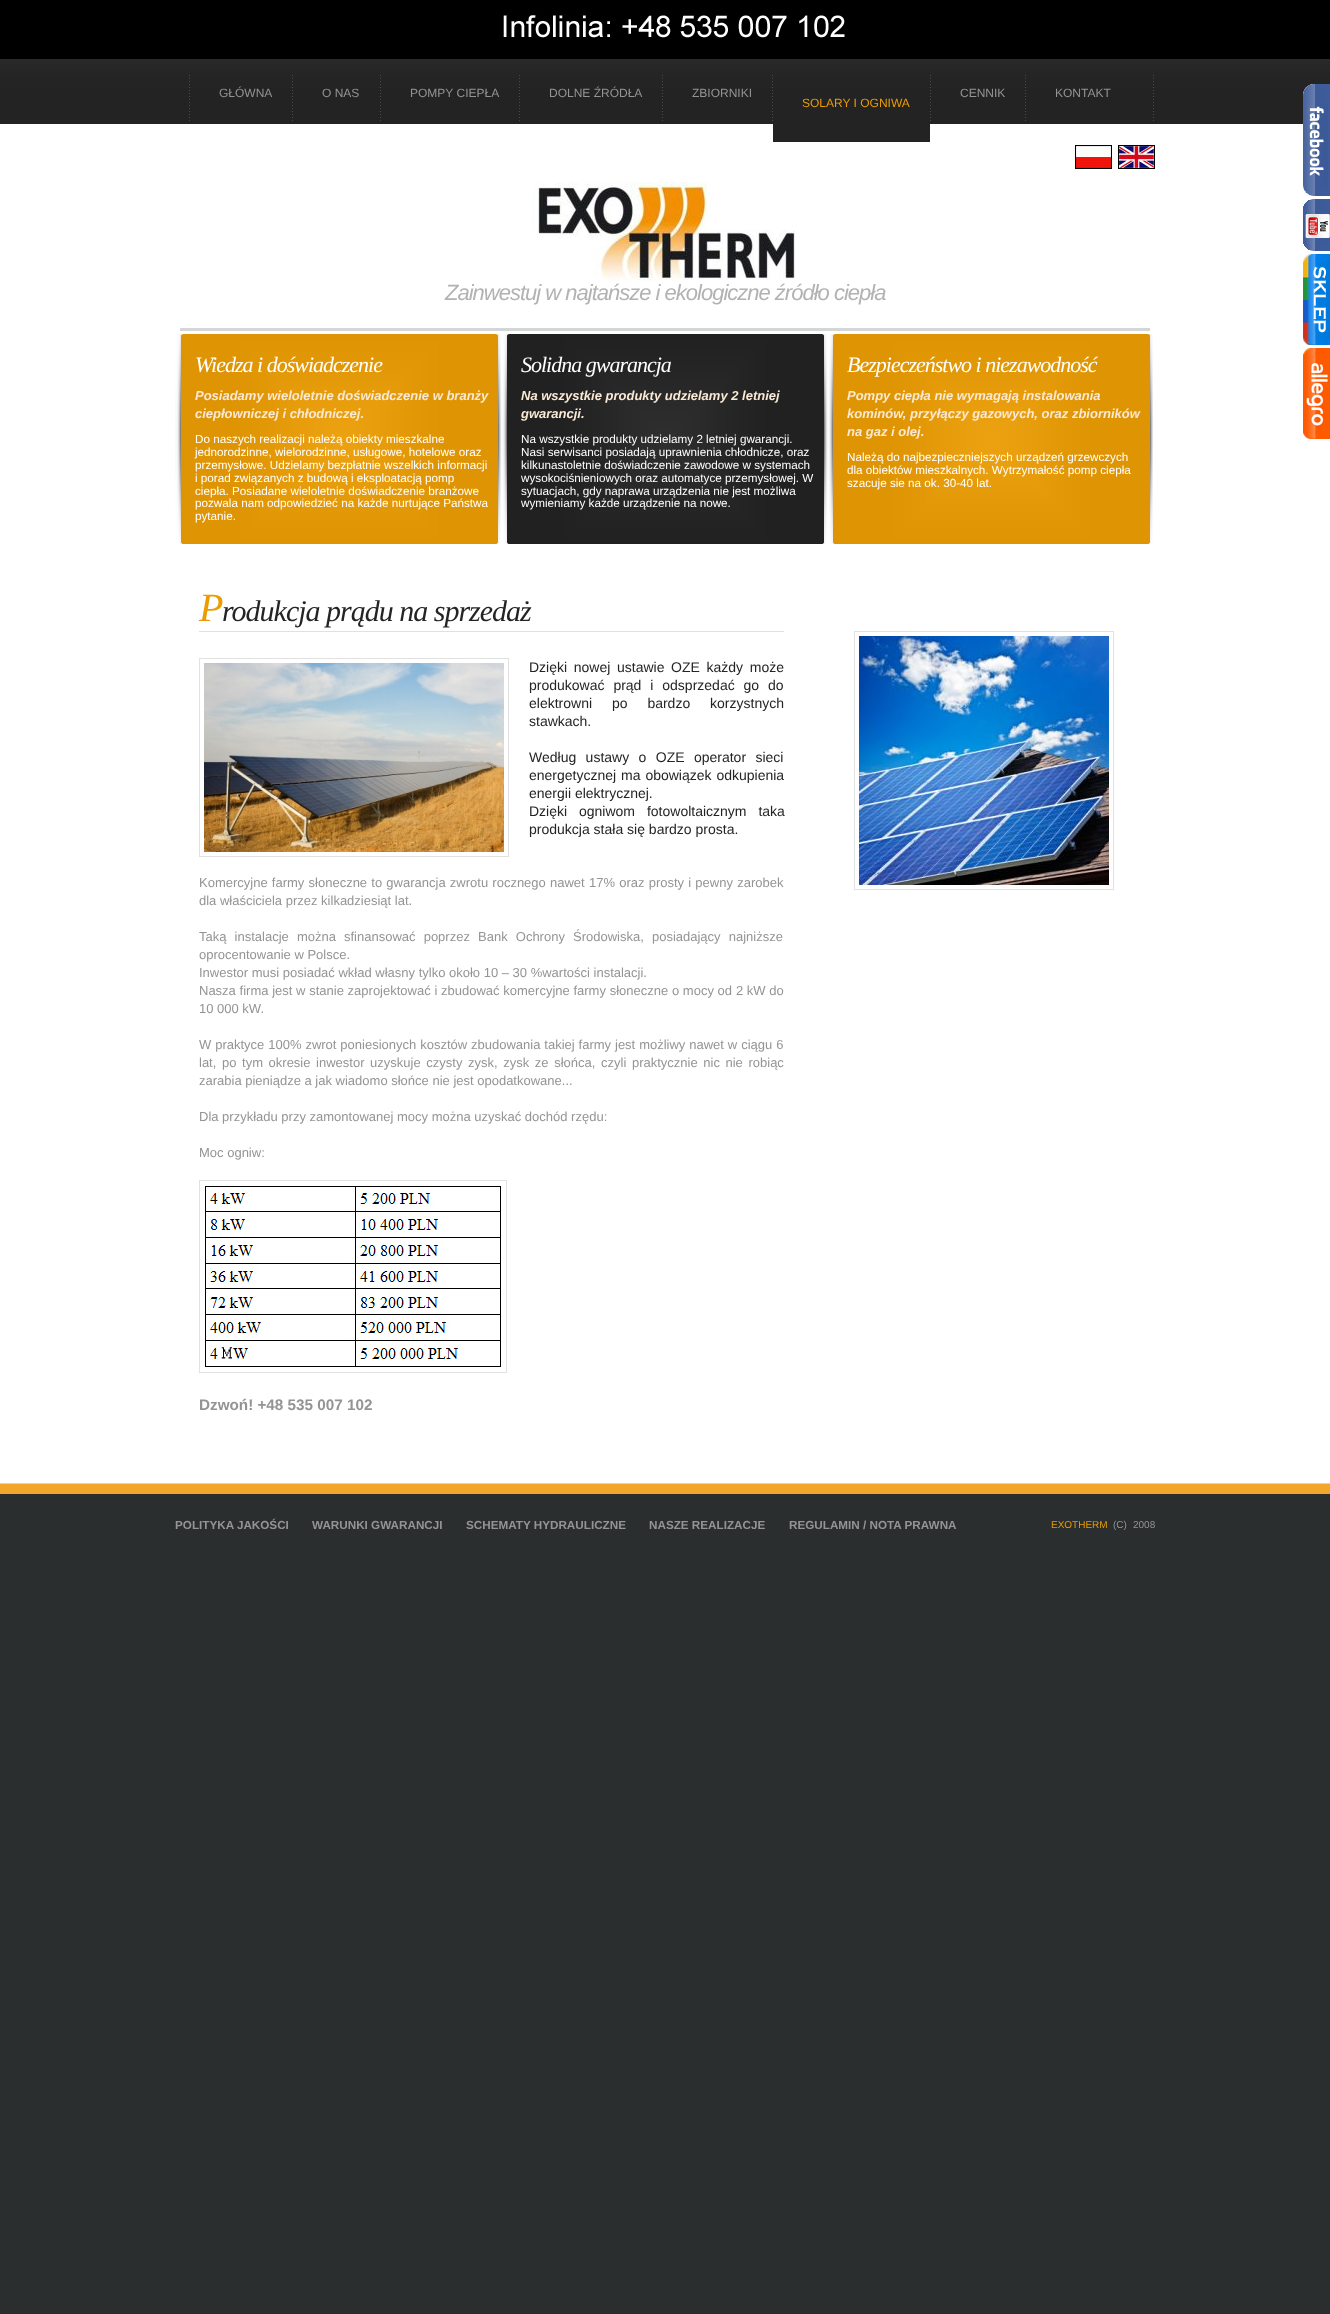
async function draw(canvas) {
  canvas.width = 1330;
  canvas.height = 2314;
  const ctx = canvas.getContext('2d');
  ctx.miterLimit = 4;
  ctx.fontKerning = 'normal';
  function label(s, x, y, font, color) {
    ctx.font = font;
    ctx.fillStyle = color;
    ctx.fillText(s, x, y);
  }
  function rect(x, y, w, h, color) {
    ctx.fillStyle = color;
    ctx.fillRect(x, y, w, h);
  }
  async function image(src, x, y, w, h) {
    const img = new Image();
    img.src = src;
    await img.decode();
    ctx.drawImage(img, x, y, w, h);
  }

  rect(0, 0, 1330, 2314, '#2b2e2f');
  await image('assets/img1.png', 0, 0, 1330, 43);
  rect(0, 124, 1330, 1359, '#fff');
  await image('assets/img2.png', 0, 43, 1330, 81);
  rect(0, 1483, 1330, 1, '#d5d5d5');
  await image('assets/img3.png', 1153, 75, 1, 46);
  await image('assets/img3.png', 189, 75, 1, 46);
  label('GŁÓWNA', 219, 97, '12px Liberation Sans', '#949494');
  await image('assets/img3.png', 292, 75, 1, 46);
  label('O NAS', 322, 97, '12px Liberation Sans', '#949494');
  await image('assets/img3.png', 380, 75, 1, 46);
  label('POMPY CIEPŁA', 410, 97, '12px Liberation Sans', '#949494');
  await image('assets/img3.png', 519, 75, 1, 46);
  label('DOLNE ŹRÓDŁA', 549, 97, '12px Liberation Sans', '#949494');
  await image('assets/img3.png', 662, 75, 1, 46);
  label('ZBIORNIKI', 692, 97, '12px Liberation Sans', '#949494');
  await image('assets/img3.png', 930, 75, 1, 46);
  label('CENNIK', 960, 97, '12px Liberation Sans', '#949494');
  await image('assets/img3.png', 1025, 75, 1, 46);
  label('KONTAKT', 1055, 97, '12px Liberation Sans', '#949494');
  await image('assets/img3.png', 772, 75, 1, 46);
  rect(773, 124, 157, 18, '#232323');
  label('SOLARY I OGNIWA', 802, 107, '12px Liberation Sans', '#eb9c03');
  await image('assets/img4.png', 1075, 145, 37, 24);
  await image('assets/img5.png', 1118, 145, 37, 24);
  rect(180, 328, 970, 3, '#d2d6d7');
  await image('assets/img6.png', 533, 182, 262, 100);
  ctx.letterSpacing = '-1px';
  label('Zainwestuj w najtańsze i ekologiczne źródło ciepła', 445, 300, 'italic 22px Liberation Sans', '#b2b2b2');
  await image('assets/img7.png', 175, 334, 326, 210);
  label('Wiedza i doświadczenie', 195, 372, 'italic 22px Liberation Serif', '#fff');
  ctx.letterSpacing = '0px';
  label('Posiadamy wieloletnie doświadczenie w branży', 195, 400, 'italic bold 13px Liberation Sans', '#fae9d4');
  label('ciepłowniczej i chłodniczej.', 195, 418, 'italic bold 13px Liberation Sans', '#fae9d4');
  label('Do naszych realizacji należą obiekty mieszkalne', 195, 443, '11.7px Liberation Sans', '#fff');
  label('jednorodzinne, wielorodzinne, usługowe, hotelowe oraz', 195, 456, '11.7px Liberation Sans', '#fff');
  label('przemysłowe. Udzielamy bezpłatnie wszelkich informacji', 195, 469, '11.7px Liberation Sans', '#fff');
  label('i porad związanych z budową i eksploatacją pomp', 195, 482, '11.7px Liberation Sans', '#fff');
  label('ciepła. Posiadane wieloletnie doświadczenie branżowe', 195, 495, '11.7px Liberation Sans', '#fff');
  label('pozwala nam odpowiedzieć na każde nurtujące Państwa', 195, 507, '11.7px Liberation Sans', '#fff');
  label('pytanie.', 195, 520, '11.7px Liberation Sans', '#fff');
  await image('assets/img8.png', 501, 334, 326, 210);
  ctx.letterSpacing = '-1px';
  label('Solidna gwarancja', 521, 372, 'italic 22px Liberation Serif', '#fff');
  ctx.letterSpacing = '0px';
  label('Na wszystkie produkty udzielamy 2 letniej', 521, 400, 'italic bold 13px Liberation Sans', '#fae9d4');
  label('gwarancji.', 521, 418, 'italic bold 13px Liberation Sans', '#fae9d4');
  label('Na wszystkie produkty udzielamy 2 letniej gwarancji.', 521, 443, '11.7px Liberation Sans', '#fff');
  label('Nasi serwisanci posiadają uprawnienia chłodnicze, oraz', 521, 456, '11.7px Liberation Sans', '#fff');
  label('kilkunastoletnie doświadczenie zawodowe w systemach', 521, 469, '11.7px Liberation Sans', '#fff');
  label('wysokociśnieniowych oraz automatyce przemysłowej. W', 521, 482, '11.7px Liberation Sans', '#fff');
  label('sytuacjach, gdy naprawa urządzenia nie jest możliwa', 521, 495, '11.7px Liberation Sans', '#fff');
  label('wymieniamy każde urządzenie na nowe.', 521, 507, '11.7px Liberation Sans', '#fff');
  await image('assets/img7.png', 827, 334, 326, 210);
  ctx.letterSpacing = '-1px';
  label('Bezpieczeństwo i niezawodność', 847, 372, 'italic 22px Liberation Serif', '#fff');
  ctx.letterSpacing = '0px';
  label('Pompy ciepła nie wymagają instalowania', 847, 400, 'italic bold 13px Liberation Sans', '#fae9d4');
  label('kominów, przyłączy gazowych, oraz zbiorników', 847, 418, 'italic bold 13px Liberation Sans', '#fae9d4');
  label('na gaz i olej.', 847, 436, 'italic bold 13px Liberation Sans', '#fae9d4');
  label('Należą do najbezpieczniejszych urządzeń grzewczych', 847, 461, '11.7px Liberation Sans', '#fff');
  label('dla obiektów mieszkalnych. Wytrzymałość pomp ciepła', 847, 474, '11.7px Liberation Sans', '#fff');
  label('szacuje sie na ok. 30-40 lat.', 847, 487, '11.7px Liberation Sans', '#fff');
  rect(199, 631, 585, 1, '#e1e1e1');
  ctx.letterSpacing = '-1px';
  label('P', 199, 621, 'italic 40px Liberation Serif', '#eb9c03');
  label('rodukcja prądu na sprzedaż', 222, 621, 'italic 30px Liberation Serif', '#252424');
  ctx.strokeStyle = '#e1e1e1';
  ctx.strokeRect(199.5, 658.5, 309, 198);
  await image('assets/img9.png', 204, 663, 300, 189);
  ctx.letterSpacing = '0px';
  ctx.wordSpacing = '2.75px';
  label('Dzięki nowej ustawie OZE każdy może', 529, 672, '14px Liberation Sans', '#252424');
  ctx.wordSpacing = '5px';
  label('produkować prąd i odsprzedać go do', 529, 690, '14px Liberation Sans', '#252424');
  ctx.wordSpacing = '16px';
  label('elektrowni po bardzo korzystnych', 529, 708, '14px Liberation Sans', '#252424');
  ctx.wordSpacing = '0px';
  label('stawkach.', 529, 726, '14px Liberation Sans', '#252424');
  ctx.wordSpacing = '5.5px';
  label('Według ustawy o OZE operator sieci', 529, 762, '14px Liberation Sans', '#252424');
  ctx.wordSpacing = '1px';
  label('energetycznej ma obowiązek odkupienia', 529, 780, '14px Liberation Sans', '#252424');
  ctx.wordSpacing = '0px';
  label('energii elektrycznej.', 529, 798, '14px Liberation Sans', '#252424');
  ctx.wordSpacing = '8px';
  label('Dzięki ogniwom fotowoltaicznym taka', 529, 816, '14px Liberation Sans', '#252424');
  ctx.wordSpacing = '0px';
  label('produkcja stała się bardzo prosta.', 529, 834, '14px Liberation Sans', '#252424');
  ctx.wordSpacing = '0.6px';
  label('Komercyjne farmy słoneczne to gwarancja zwrotu rocznego nawet 17% oraz prosty i pewny zarobek', 199, 887, '13px Liberation Sans', '#949494');
  ctx.wordSpacing = '0px';
  label('dla właściciela przez kilkadziesiąt lat.', 199, 905, '13px Liberation Sans', '#949494');
  ctx.wordSpacing = '4.5px';
  label('Taką instalacje można sfinansować poprzez Bank Ochrony Środowiska, posiadający najniższe', 199, 941, '13px Liberation Sans', '#949494');
  ctx.wordSpacing = '0px';
  label('oprocentowanie w Polsce.', 199, 959, '13px Liberation Sans', '#949494');
  label('Inwestor musi posiadać wkład własny tylko około 10 – 30 %wartości instalacji.', 199, 977, '13px Liberation Sans', '#949494');
  ctx.wordSpacing = '0.1px';
  label('Nasza firma jest w stanie zaprojektować i zbudować komercyjne farmy słoneczne o mocy od', 199, 995, '13px Liberation Sans', '#949494');
  ctx.wordSpacing = '0px';
  label('2 kW do', 736, 995, '13px Liberation Sans', '#949494');
  label('10 000 kW.', 199, 1013, '13px Liberation Sans', '#949494');
  ctx.wordSpacing = '0.3px';
  label('W praktyce 100% zwrot poniesionych kosztów zbudowania takiej farmy jest możliwy nawet w ciągu 6', 199, 1049, '13px Liberation Sans', '#949494');
  ctx.wordSpacing = '2px';
  label('lat, po tym okresie inwestor uzyskuje czysty zysk, zysk ze słońca, czyli praktycznie nic nie robiąc', 199, 1067, '13px Liberation Sans', '#949494');
  ctx.wordSpacing = '0px';
  label('zarabia pieniądze a jak wiadomo słońce nie jest opodatkowane...', 199, 1085, '13px Liberation Sans', '#949494');
  label('Dla przykładu przy zamontowanej mocy można uzyskać dochód rzędu:', 199, 1121, '13px Liberation Sans', '#949494');
  label('Moc ogniw:', 199, 1157, '13px Liberation Sans', '#949494');
  ctx.strokeRect(199.5, 1180.5, 307, 192);
  await image('assets/img10.png', 205, 1186, 296, 181);
  label('Dzwoń! +48 535 007 102', 199, 1410, 'bold 15.25px Liberation Sans', '#949494');
  ctx.strokeRect(854.5, 631.5, 259, 258);
  await image('assets/img11.png', 859, 636, 250, 249);
  await image('assets/img12.png', 1303, 84, 27, 112);
  await image('assets/img13.png', 1303, 199, 27, 52);
  await image('assets/img14.png', 1303, 254, 27, 91);
  await image('assets/img15.png', 1303, 348, 27, 91);
  rect(0, 1484, 1330, 10, '#f4a62a');
  label('POLITYKA JAKOŚCI', 175, 1529, 'bold 11.7px Liberation Sans', '#949494');
  label('WARUNKI GWARANCJI', 312, 1529, 'bold 11.7px Liberation Sans', '#949494');
  label('SCHEMATY HYDRAULICZNE', 466, 1529, 'bold 11.7px Liberation Sans', '#949494');
  label('NASZE REALIZACJE', 649, 1529, 'bold 11.7px Liberation Sans', '#949494');
  label('REGULAMIN / NOTA PRAWNA', 789, 1529, 'bold 11.7px Liberation Sans', '#949494');
  label('EXOTHERM', 1051, 1528, '10px Liberation Sans', '#eb9c03');
  label('(C)', 1113, 1528, '10px Liberation Sans', '#949494');
  label('2008', 1133, 1528, '10px Liberation Sans', '#949494');
}

draw(document.querySelector('canvas'));
